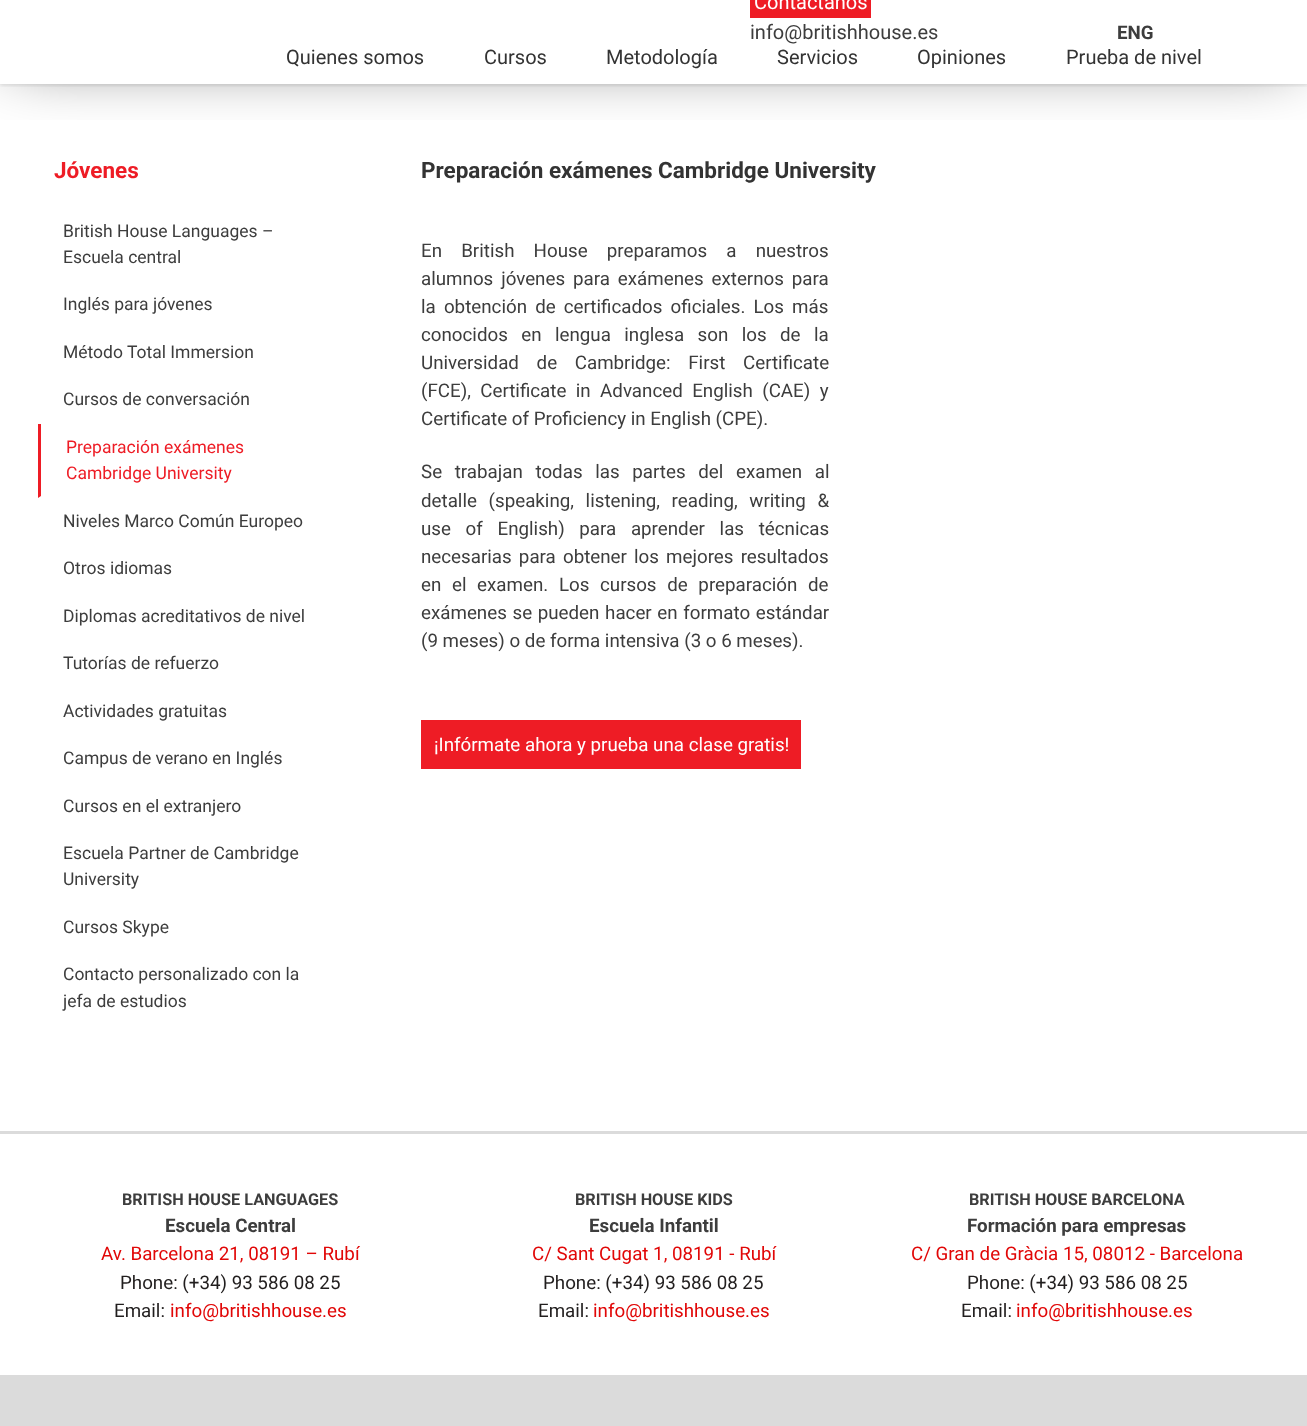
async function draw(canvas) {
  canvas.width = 1307;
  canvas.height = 1426;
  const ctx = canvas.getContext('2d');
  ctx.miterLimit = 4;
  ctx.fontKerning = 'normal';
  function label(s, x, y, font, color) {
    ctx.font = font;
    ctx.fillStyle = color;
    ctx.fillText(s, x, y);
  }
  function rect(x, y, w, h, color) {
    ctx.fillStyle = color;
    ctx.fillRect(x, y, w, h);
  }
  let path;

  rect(0, 0, 1307, 1426, '#fff');
  ctx.save();
  ctx.beginPath();
  ctx.rect(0, 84, 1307, 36);
  ctx.clip();
  ctx.fillStyle = '#000000bf';
  ctx.filter = 'blur(34px)';
  ctx.beginPath();
  ctx.rect(11, -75, 1285, 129);
  ctx.fill();
  ctx.filter = 'none';
  ctx.restore();
  ctx.save();
  ctx.beginPath();
  ctx.rect(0, 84, 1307, 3);
  ctx.clip();
  ctx.fillStyle = '#0000001f';
  ctx.filter = 'blur(2px)';
  ctx.beginPath();
  ctx.rect(0, -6, 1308, 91);
  ctx.fill();
  ctx.filter = 'none';
  ctx.restore();
  rect(750, 0, 121, 18, '#ee1c25');
  label('Contáctanos', 754, 9, '20px Roboto', '#fff');
  label('info@britishhouse.es', 750, 39, '20px Roboto', '#3d3d3d');
  label('ENG', 1117, 39, 'bold 18.75px Roboto', '#3d3d3d');
  rect(0, 83, 1307, 1, '#fff');
  label('Quienes somos', 286, 64, '20px Roboto', '#333');
  label('Cursos', 484, 64, '20px Roboto', '#333');
  label('Metodología', 606, 64, '20px Roboto', '#333');
  label('Servicios', 777, 64, '20px Roboto', '#333');
  label('Opiniones', 917, 64, '20px Roboto', '#333');
  label('Prueba de nivel', 1066, 64, '20px Roboto', '#333');
  label('Jóvenes', 54, 178, 'bold 22.5px Roboto', '#ee1c25');
  label('British House Languages –', 63, 237, '17.5px Roboto', '#3d3d3d');
  label('Escuela central', 63, 263, '17.5px Roboto', '#3d3d3d');
  label('Inglés para jóvenes', 63, 310, '17.5px Roboto', '#3d3d3d');
  label('Método Total Immersion', 63, 358, '17.5px Roboto', '#3d3d3d');
  label('Cursos de conversación', 63, 405, '17.5px Roboto', '#3d3d3d');
  ctx.fillStyle = '#ee1c25';
  path = new Path2D('M38 498V424H41V496Z');
  ctx.fill(path);
  label('Preparación exámenes', 66, 453, '17.5px Roboto', '#ee1c25');
  label('Cambridge University', 66, 479, '17.5px Roboto', '#ee1c25');
  label('Niveles Marco Común Europeo', 63, 527, '17.5px Roboto', '#3d3d3d');
  label('Otros idiomas', 63, 574, '17.5px Roboto', '#3d3d3d');
  label('Diplomas acreditativos de nivel', 63, 622, '17.5px Roboto', '#3d3d3d');
  label('Tutorías de refuerzo', 63, 669, '17.5px Roboto', '#3d3d3d');
  label('Actividades gratuitas', 63, 717, '17.5px Roboto', '#3d3d3d');
  label('Campus de verano en Inglés', 63, 764, '17.5px Roboto', '#3d3d3d');
  label('Cursos en el extranjero', 63, 812, '17.5px Roboto', '#3d3d3d');
  label('Escuela Partner de Cambridge', 63, 859, '17.5px Roboto', '#3d3d3d');
  label('University', 63, 885, '17.5px Roboto', '#3d3d3d');
  label('Cursos Skype', 63, 933, '17.5px Roboto', '#3d3d3d');
  label('Contacto personalizado con la', 63, 980, '17.5px Roboto', '#3d3d3d');
  label('jefa de estudios', 63, 1007, '17.5px Roboto', '#3d3d3d');
  label('Preparación exámenes Cambridge University', 421, 178, 'bold 22.5px Roboto', '#333');
  ctx.wordSpacing = '14.5px';
  label('En British House preparamos a nuestros', 421, 257, '18.75px Roboto', '#3d3d3d');
  ctx.wordSpacing = '3.25px';
  label('alumnos jóvenes para exámenes externos para', 421, 285, '18.75px Roboto', '#3d3d3d');
  ctx.wordSpacing = '3.5px';
  label('la obtención de certificados oficiales. Los más', 421, 313, '18.75px Roboto', '#3d3d3d');
  ctx.wordSpacing = '8.75px';
  label('conocidos en lengua inglesa son los de la', 421, 341, '18.75px Roboto', '#3d3d3d');
  ctx.wordSpacing = '13px';
  label('Universidad de Cambridge: First Certificate', 421, 369, '18.75px Roboto', '#3d3d3d');
  ctx.wordSpacing = '4.75px';
  label('(FCE), Certificate in Advanced English (CAE) y', 421, 397, '18.75px Roboto', '#3d3d3d');
  ctx.wordSpacing = '0px';
  label('Certificate of Proficiency in English (CPE).', 421, 425, '18.75px Roboto', '#3d3d3d');
  ctx.wordSpacing = '8px';
  label('Se trabajan todas las partes del examen al', 421, 478, '18.75px Roboto', '#3d3d3d');
  ctx.wordSpacing = '7px';
  label('detalle (speaking, listening, reading, writing &', 421, 507, '18.75px Roboto', '#3d3d3d');
  ctx.wordSpacing = '10px';
  label('use of English) para aprender las técnicas', 421, 535, '18.75px Roboto', '#3d3d3d');
  ctx.wordSpacing = '2.5px';
  label('necesarias para obtener los mejores resultados', 421, 563, '18.75px Roboto', '#3d3d3d');
  ctx.wordSpacing = '6px';
  label('en el examen. Los cursos de preparación de', 421, 591, '18.75px Roboto', '#3d3d3d');
  ctx.wordSpacing = '1px';
  label('exámenes se pueden hacer en formato estándar', 421, 619, '18.75px Roboto', '#3d3d3d');
  ctx.wordSpacing = '0px';
  label('(9 meses) o de forma intensiva (3 o 6 meses).', 421, 647, '18.75px Roboto', '#3d3d3d');
  rect(421, 720, 380, 49, '#ee1c25');
  label('¡Infórmate ahora y prueba una clase gratis!', 434, 751, '18.75px Roboto', '#fff');
  rect(0, 1131, 1307, 3, '#dbdbdb');
  label('BRITISH HOUSE LANGUAGES', 122, 1205, 'bold 16.25px Roboto', '#3d3d3d');
  label('Escuela Central', 165, 1232, 'bold 18.75px Roboto', '#3d3d3d');
  label('Av. Barcelona 21, 08191 – Rubí', 101, 1260, '18.75px Roboto', '#e10707');
  label('Phone: (+34) 93 586 08 25', 120, 1289, '18.75px Roboto', '#211e1e');
  label('Email:', 114, 1317, '18.75px Roboto', '#211e1e');
  label('info@britishhouse.es', 170, 1317, '18.75px Roboto', '#e10707');
  label('BRITISH HOUSE KIDS', 575, 1205, 'bold 16.25px Roboto', '#3d3d3d');
  label('Escuela Infantil', 589, 1232, 'bold 18.75px Roboto', '#3d3d3d');
  label('C/ Sant Cugat 1, 08191 - Rubí', 532, 1260, '18.75px Roboto', '#e10707');
  label('Phone: (+34) 93 586 08 25', 543, 1289, '18.75px Roboto', '#211e1e');
  label('Email:', 538, 1317, '18.75px Roboto', '#211e1e');
  label('info@britishhouse.es', 593, 1317, '18.75px Roboto', '#e10707');
  label('BRITISH HOUSE BARCELONA', 969, 1205, 'bold 16.25px Roboto', '#3d3d3d');
  label('Formación para empresas', 967, 1232, 'bold 18.75px Roboto', '#3d3d3d');
  label('C/ Gran de Gràcia 15, 08012 - Barcelona', 911, 1260, '18.75px Roboto', '#e10707');
  label('Phone: (+34) 93 586 08 25', 967, 1289, '18.75px Roboto', '#211e1e');
  label('Email:', 961, 1317, '18.75px Roboto', '#211e1e');
  label('info@britishhouse.es', 1016, 1317, '18.75px Roboto', '#e10707');
  rect(0, 1375, 1307, 51, '#dbdbdb');
}

draw(document.querySelector('canvas'));
